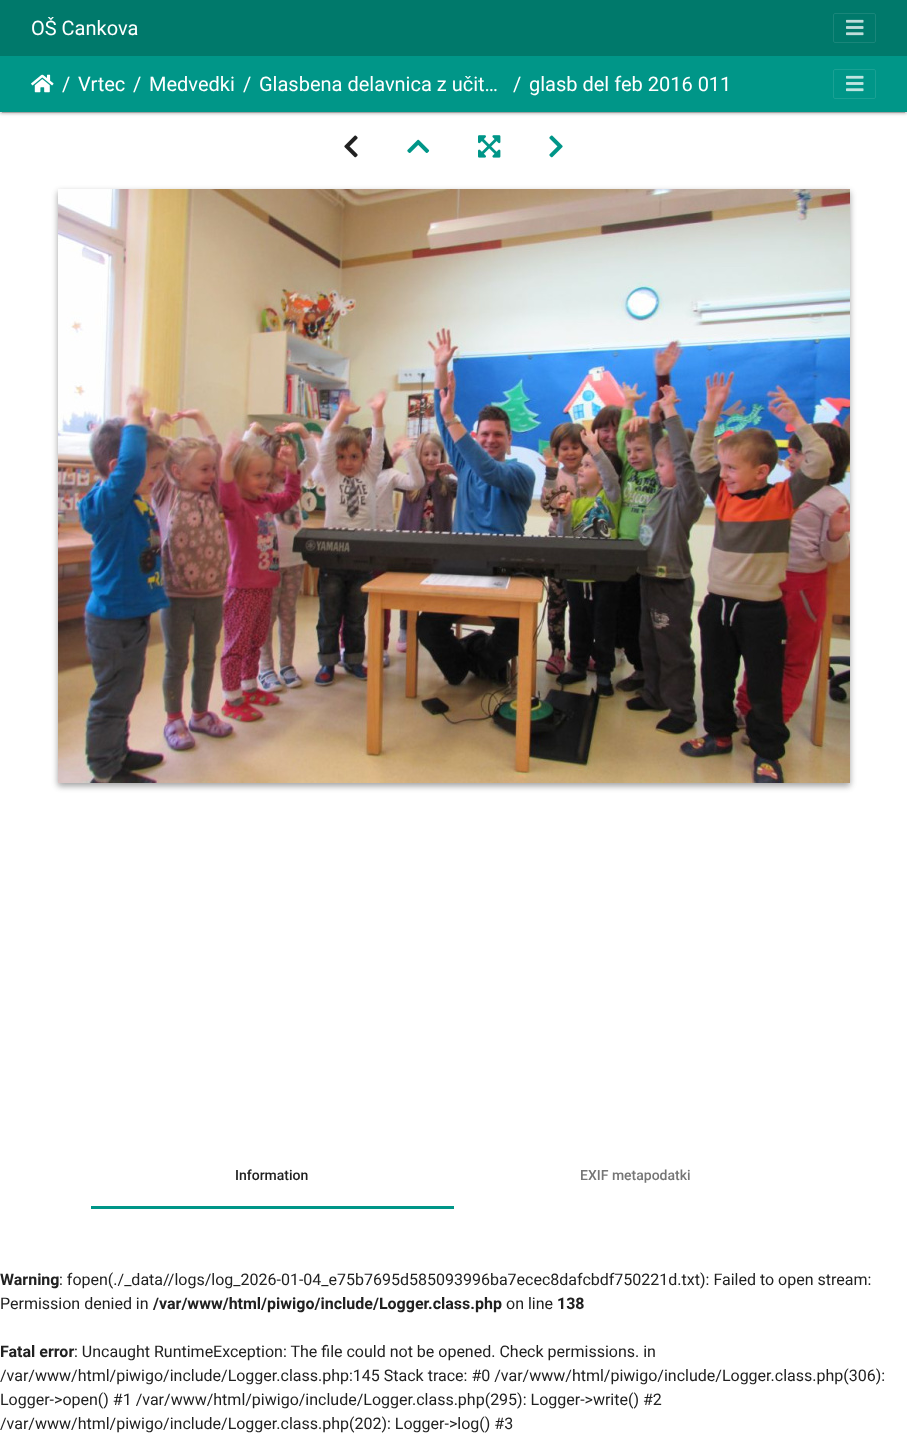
async function draw(canvas) {
  canvas.width = 907;
  canvas.height = 1438;
  const ctx = canvas.getContext('2d');
  ctx.miterLimit = 4;
  ctx.fontKerning = 'normal';
  function label(s, x, y, font, color) {
    ctx.font = font;
    ctx.fillStyle = color;
    ctx.fillText(s, x, y);
  }
  function rect(x, y, w, h, color) {
    ctx.fillStyle = color;
    ctx.fillRect(x, y, w, h);
  }
  async function image(src, x, y, w, h) {
    const img = new Image();
    img.src = src;
    await img.decode();
    ctx.drawImage(img, x, y, w, h);
  }

  rect(0, 0, 907, 1438, '#fff');
  ctx.fillStyle = '#0000001f';
  ctx.filter = 'blur(2.5px)';
  ctx.beginPath();
  ctx.rect(0, 57, 907, 56);
  ctx.fill();
  ctx.filter = 'none';
  ctx.fillStyle = '#00000024';
  ctx.filter = 'blur(1px)';
  ctx.beginPath();
  ctx.rect(0, 58, 907, 56);
  ctx.fill();
  ctx.filter = 'none';
  rect(0, 0, 907, 56, '#00796b');
  label('OŠ Cankova', 31, 35, '20px Roboto', '#fff');
  ctx.beginPath();
  ctx.roundRect(833.5, 13.5, 42, 29, 1.5);
  ctx.strokeStyle = '#1a867a';
  ctx.stroke();
  await image('assets/img1.png', 846, 19, 18, 17);
  ctx.fillStyle = '#00000033';
  ctx.filter = 'blur(0.5px)';
  ctx.beginPath();
  ctx.rect(2, 61, 903, 52);
  ctx.fill();
  ctx.filter = 'none';
  rect(0, 56, 907, 56, '#009688');
  await image('assets/img2.png', 31, 74, 23, 19);
  label('/', 62, 91, '20px Roboto', '#fff');
  label('Vrtec', 78, 91, '20px Roboto', '#fff');
  label('/', 133, 91, '20px Roboto', '#fff');
  label('Medvedki', 149, 91, '20px Roboto', '#fff');
  label('/', 243, 91, '20px Roboto', '#fff');
  label('Glasbena delavnica z učit…', 259, 91, '20px Roboto', '#fff');
  label('/', 513, 91, '20px Roboto', '#fff');
  label('glasb del feb 2016 011', 529, 91, '20px Roboto', '#fff');
  ctx.beginPath();
  ctx.roundRect(833.5, 69.5, 42, 29, 1.5);
  ctx.strokeStyle = '#1aa194';
  ctx.stroke();
  await image('assets/img3.png', 846, 75, 18, 17);
  await image('assets/img4.png', 344, 135, 14, 23);
  await image('assets/img5.png', 407, 139, 23, 14);
  await image('assets/img6.png', 478, 135, 23, 23);
  await image('assets/img7.png', 549, 135, 14, 23);
  ctx.fillStyle = '#0000003b';
  ctx.filter = 'blur(3px)';
  ctx.beginPath();
  ctx.rect(58, 192, 792, 594);
  ctx.fill();
  ctx.filter = 'none';
  ctx.fillStyle = '#00000029';
  ctx.filter = 'blur(3px)';
  ctx.beginPath();
  ctx.rect(58, 192, 792, 594);
  ctx.fill();
  ctx.filter = 'none';
  await image('assets/img8.png', 58, 189, 792, 594);
  rect(91, 1206, 363, 3, '#009688');
  label('Information', 235, 1180, '500 14px Roboto', '#212121');
  label('EXIF metapodatki', 580, 1180, '500 14px Roboto', '#757575');
  label('Warning', 0, 1285, 'bold 16px Roboto', '#212121');
  label(': fopen(./_data//logs/log_2026-01-04_e75b7695d585093996ba7ecec8dafcbdf750221d.txt): Failed to open stream:', 59, 1285, '16px Roboto', '#212121');
  label('Permission denied in', 0, 1309, '16px Roboto', '#212121');
  label('/var/www/html/piwigo/include/Logger.class.php', 153, 1309, 'bold 16px Roboto', '#212121');
  label('on line', 506, 1309, '16px Roboto', '#212121');
  label('138', 557, 1309, 'bold 16px Roboto', '#212121');
  label('Fatal error', 0, 1357, 'bold 16px Roboto', '#212121');
  label(': Uncaught RuntimeException: The file could not be opened. Check permissions. in', 74, 1357, '16px Roboto', '#212121');
  label('/var/www/html/piwigo/include/Logger.class.php:145 Stack trace: #0 /var/www/html/piwigo/include/Logger.class.php(306):', 0, 1381, '16px Roboto', '#212121');
  label('Logger->open() #1 /var/www/html/piwigo/include/Logger.class.php(295): Logger->write() #2', 0, 1405, '16px Roboto', '#212121');
  label('/var/www/html/piwigo/include/Logger.class.php(202): Logger->log() #3', 0, 1429, '16px Roboto', '#212121');
}

draw(document.querySelector('canvas'));
